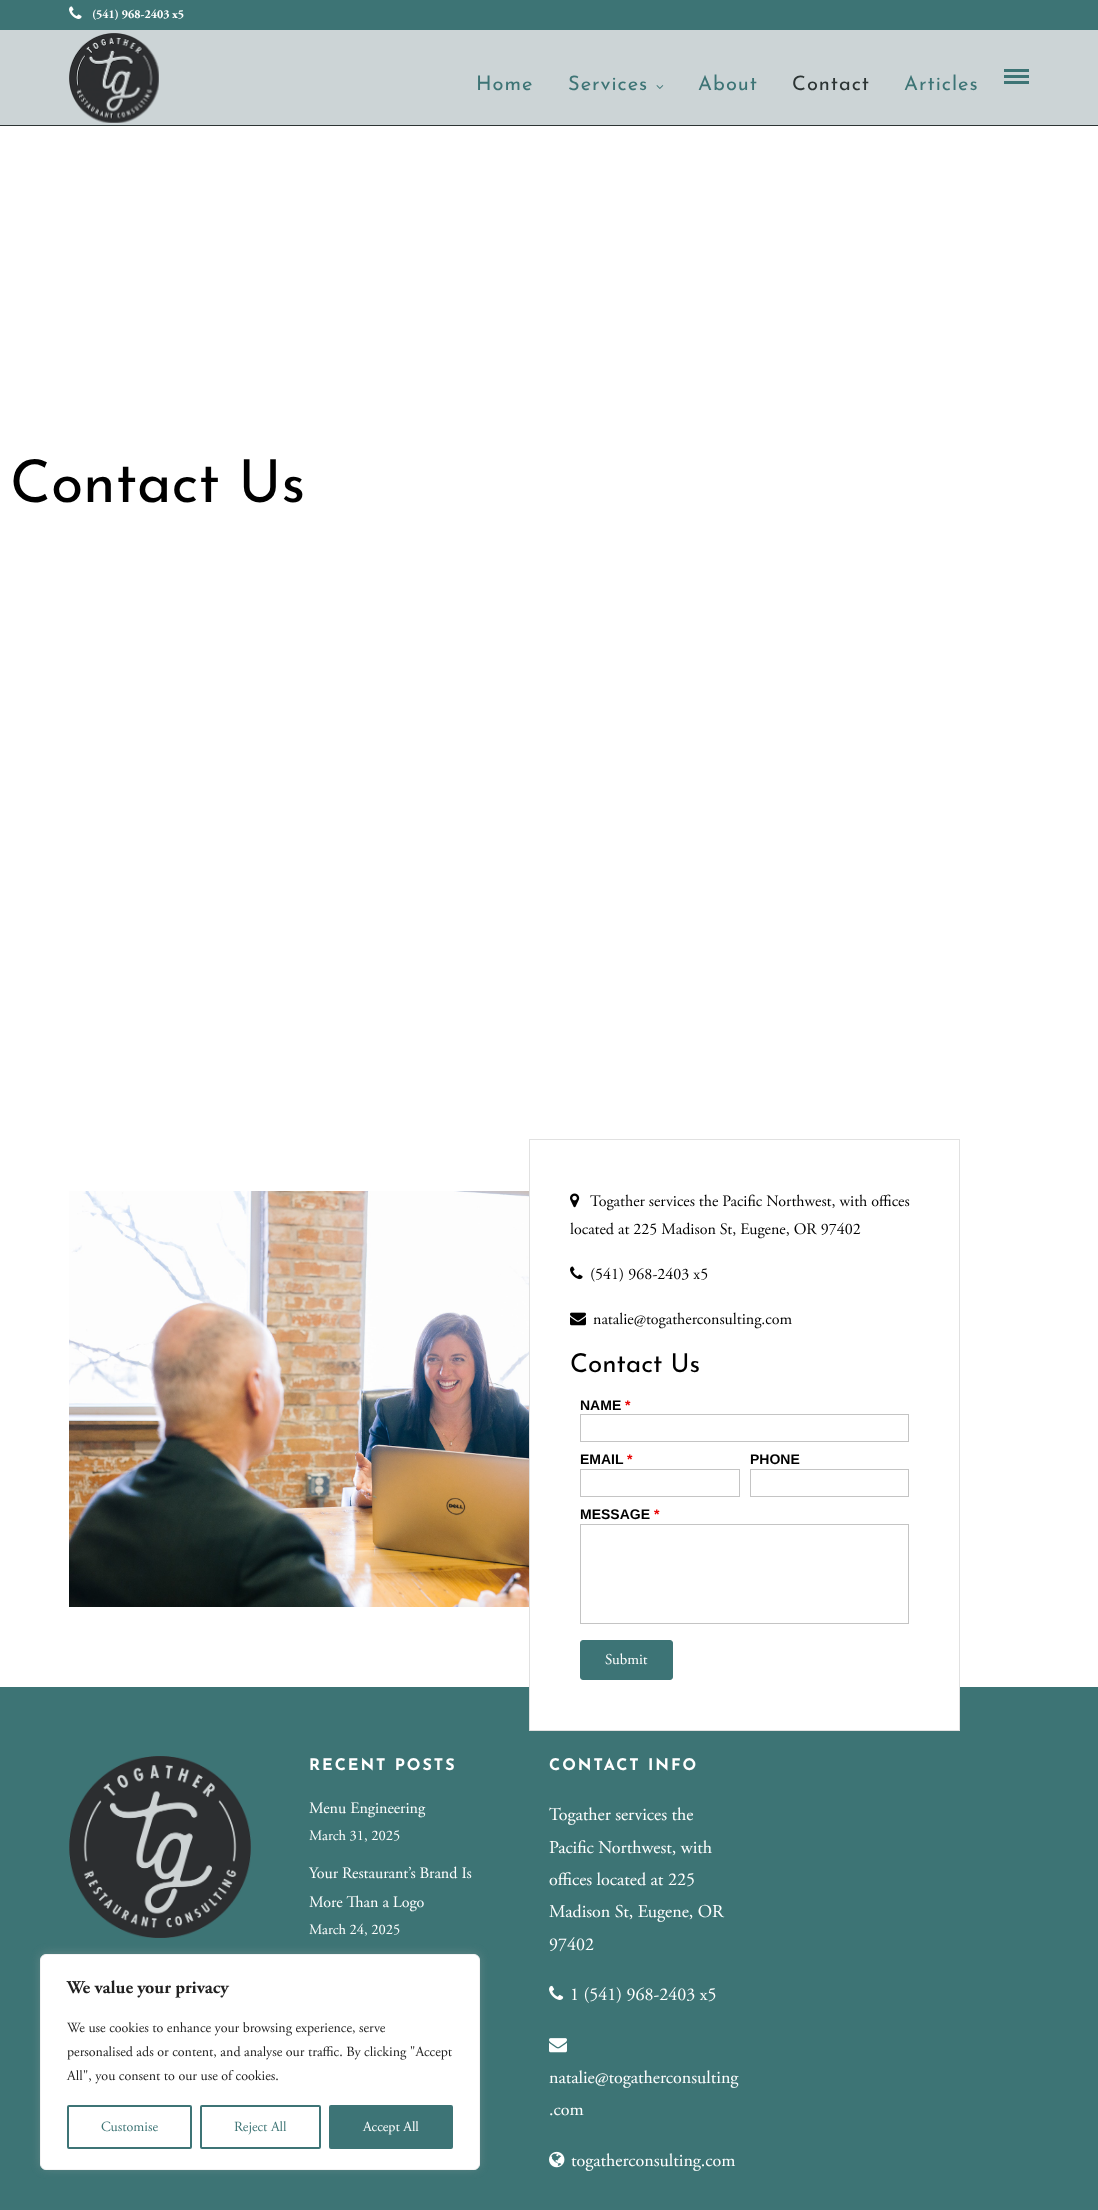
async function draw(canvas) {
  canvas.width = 1098;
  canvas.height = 2210;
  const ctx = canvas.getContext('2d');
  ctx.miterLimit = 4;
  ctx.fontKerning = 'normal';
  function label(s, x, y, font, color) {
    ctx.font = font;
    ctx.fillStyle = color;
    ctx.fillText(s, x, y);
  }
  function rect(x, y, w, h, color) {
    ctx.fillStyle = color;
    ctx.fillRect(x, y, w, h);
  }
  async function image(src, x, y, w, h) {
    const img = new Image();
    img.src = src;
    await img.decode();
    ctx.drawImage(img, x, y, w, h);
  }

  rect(0, 0, 1098, 2210, '#fff');
  rect(0, 0, 1098, 30, '#3d7475');
  await image('assets/img1.png', 69, 6, 13, 13);
  label('(541) 968-2403 x5', 92, 18, 'bold 12px Adobe Garamond', '#fff');
  rect(0, 30, 1098, 95, '#ccd4d6');
  rect(0, 125, 1098, 1, '#2c3434');
  await image('assets/img2.png', 69, 33, 90, 90);
  ctx.letterSpacing = '1px';
  label('Home', 476, 90, '20px Josefin Sans', '#3d7475');
  label('Services', 568, 90, '20px Josefin Sans', '#3d7475');
  await image('assets/img3.png', 656, 85, 8, 4);
  label('About', 698, 90, '20px Josefin Sans', '#3d7475');
  label('Contact', 792, 90, '20px Josefin Sans', '#2c3434');
  label('Articles', 904, 90, '20px Josefin Sans', '#3d7475');
  rect(1004, 69, 25, 3, '#3d7475');
  rect(1004, 75, 25, 3, '#3d7475');
  rect(1004, 81, 25, 3, '#3d7475');
  ctx.letterSpacing = '0px';
  label('Contact Us', 10, 502, '59px Josefin Sans', '#000');
  await image('assets/img4.png', 69, 1191, 460, 416);
  rect(0, 1687, 1098, 523, '#3d7475');
  rect(530, 1687, 429, 43, '#fff');
  ctx.strokeStyle = '#e1e1e1';
  ctx.strokeRect(529.5, 1139.5, 430, 591);
  await image('assets/img5.png', 570, 1193, 10, 15);
  label('Togather services the Pacific Northwest, with offices', 590, 1206, '16px Adobe Garamond', '#000');
  label('located at 225 Madison St, Eugene, OR 97402', 570, 1234, '16px Adobe Garamond', '#000');
  await image('assets/img6.png', 570, 1266, 13, 14);
  label('(541) 968-2403 x5', 590, 1279, '16px Adobe Garamond', '#000');
  await image('assets/img7.png', 570, 1312, 16, 14);
  label('natalie@togatherconsulting.com', 593, 1324, '16px Adobe Garamond', '#000');
  label('Contact Us', 570, 1372, '26px Josefin Sans', '#000');
  label('NAME', 580, 1410, 'bold 14px Liberation Sans', '#000');
  label('*', 625, 1410, 'bold 14px Liberation Sans', '#e80000');
  ctx.strokeStyle = '#c4c4c4';
  ctx.strokeRect(580.5, 1414.5, 328, 27);
  label('EMAIL', 580, 1464, 'bold 14px Liberation Sans', '#000');
  label('*', 627, 1464, 'bold 14px Liberation Sans', '#e80000');
  ctx.strokeRect(580.5, 1469.5, 159, 27);
  label('PHONE', 750, 1464, 'bold 14px Liberation Sans', '#000');
  ctx.strokeRect(750.5, 1469.5, 158, 27);
  label('MESSAGE', 580, 1519, 'bold 14px Liberation Sans', '#000');
  label('*', 654, 1519, 'bold 14px Liberation Sans', '#e80000');
  ctx.strokeRect(580.5, 1524.5, 328, 99);
  ctx.fillStyle = '#3d7476';
  ctx.beginPath();
  ctx.roundRect(580.5, 1640.5, 92, 39, 2.5);
  ctx.fill();
  ctx.strokeStyle = '#3d7476';
  ctx.stroke();
  label('Submit', 605, 1664, '15px Adobe Garamond', '#fff');
  await image('assets/img8.png', 69, 1756, 182, 182);
  ctx.letterSpacing = '2px';
  label('RECENT POSTS', 309, 1770, 'bold 16px Josefin Sans', '#fff');
  ctx.letterSpacing = '0px';
  label('Menu Engineering', 309, 1813, '16px Adobe Garamond', '#fff');
  label('March 31, 2025', 309, 1840, '14.5px Adobe Garamond', '#fff');
  label('Your Restaurant’s Brand Is', 309, 1878, '16px Adobe Garamond', '#fff');
  label('More Than a Logo', 309, 1907, '16px Adobe Garamond', '#fff');
  label('March 24, 2025', 309, 1934, '14.5px Adobe Garamond', '#fff');
  ctx.letterSpacing = '2px';
  label('CONTACT INFO', 549, 1770, 'bold 16px Josefin Sans', '#fff');
  ctx.letterSpacing = '0px';
  label('Togather services the', 549, 1820, '18px Adobe Garamond', '#fff');
  label('Pacific Northwest, with', 549, 1853, '18px Adobe Garamond', '#fff');
  label('offices located at 225', 549, 1885, '18px Adobe Garamond', '#fff');
  label('Madison St, Eugene, OR', 549, 1917, '18px Adobe Garamond', '#fff');
  label('97402', 549, 1950, '18px Adobe Garamond', '#fff');
  await image('assets/img9.png', 549, 1985, 15, 15);
  label('1 (541) 968-2403 x5', 570, 2000, '18px Adobe Garamond', '#fff');
  await image('assets/img10.png', 549, 2038, 18, 15);
  label('natalie@togatherconsulting', 549, 2083, '18px Adobe Garamond', '#fff');
  label('.com', 549, 2115, '18px Adobe Garamond', '#fff');
  await image('assets/img11.png', 549, 2151, 16, 17);
  label('togatherconsulting.com', 571, 2166, '18px Adobe Garamond', '#fff');
  ctx.fillStyle = '#acabab4d';
  ctx.filter = 'blur(5px)';
  ctx.beginPath();
  ctx.roundRect(40, 1953, 440, 216, 6);
  ctx.fill();
  ctx.filter = 'none';
  ctx.fillStyle = '#fff';
  ctx.beginPath();
  ctx.roundRect(40.5, 1954.5, 439, 215, 5.5);
  ctx.fill();
  ctx.strokeStyle = '#f4f4f4';
  ctx.stroke();
  label('We value your privacy', 67, 1993, 'bold 18px Adobe Garamond', '#212121');
  label('We use cookies to enhance your browsing experience, serve', 67, 2032, '14px Adobe Garamond', '#212121');
  label('personalised ads or content, and analyse our traffic. By clicking "Accept', 67, 2056, '14px Adobe Garamond', '#212121');
  label('All", you consent to our use of cookies.', 67, 2080, '14px Adobe Garamond', '#212121');
  ctx.beginPath();
  ctx.roundRect(68, 2106, 123, 42, 1);
  ctx.strokeStyle = '#3d7476';
  ctx.lineWidth = 2;
  ctx.stroke();
  label('Customise', 101, 2131, '14px Adobe Garamond', '#3d7475');
  ctx.beginPath();
  ctx.roundRect(201, 2106, 119, 42, 1);
  ctx.stroke();
  label('Reject All', 234, 2131, '14px Adobe Garamond', '#3d7475');
  ctx.fillStyle = '#3d7476';
  ctx.beginPath();
  ctx.roundRect(330, 2106, 122, 42, 1);
  ctx.fill();
  ctx.stroke();
  label('Accept All', 363, 2131, '14px Adobe Garamond', '#fff');
}

draw(document.querySelector('canvas'));
